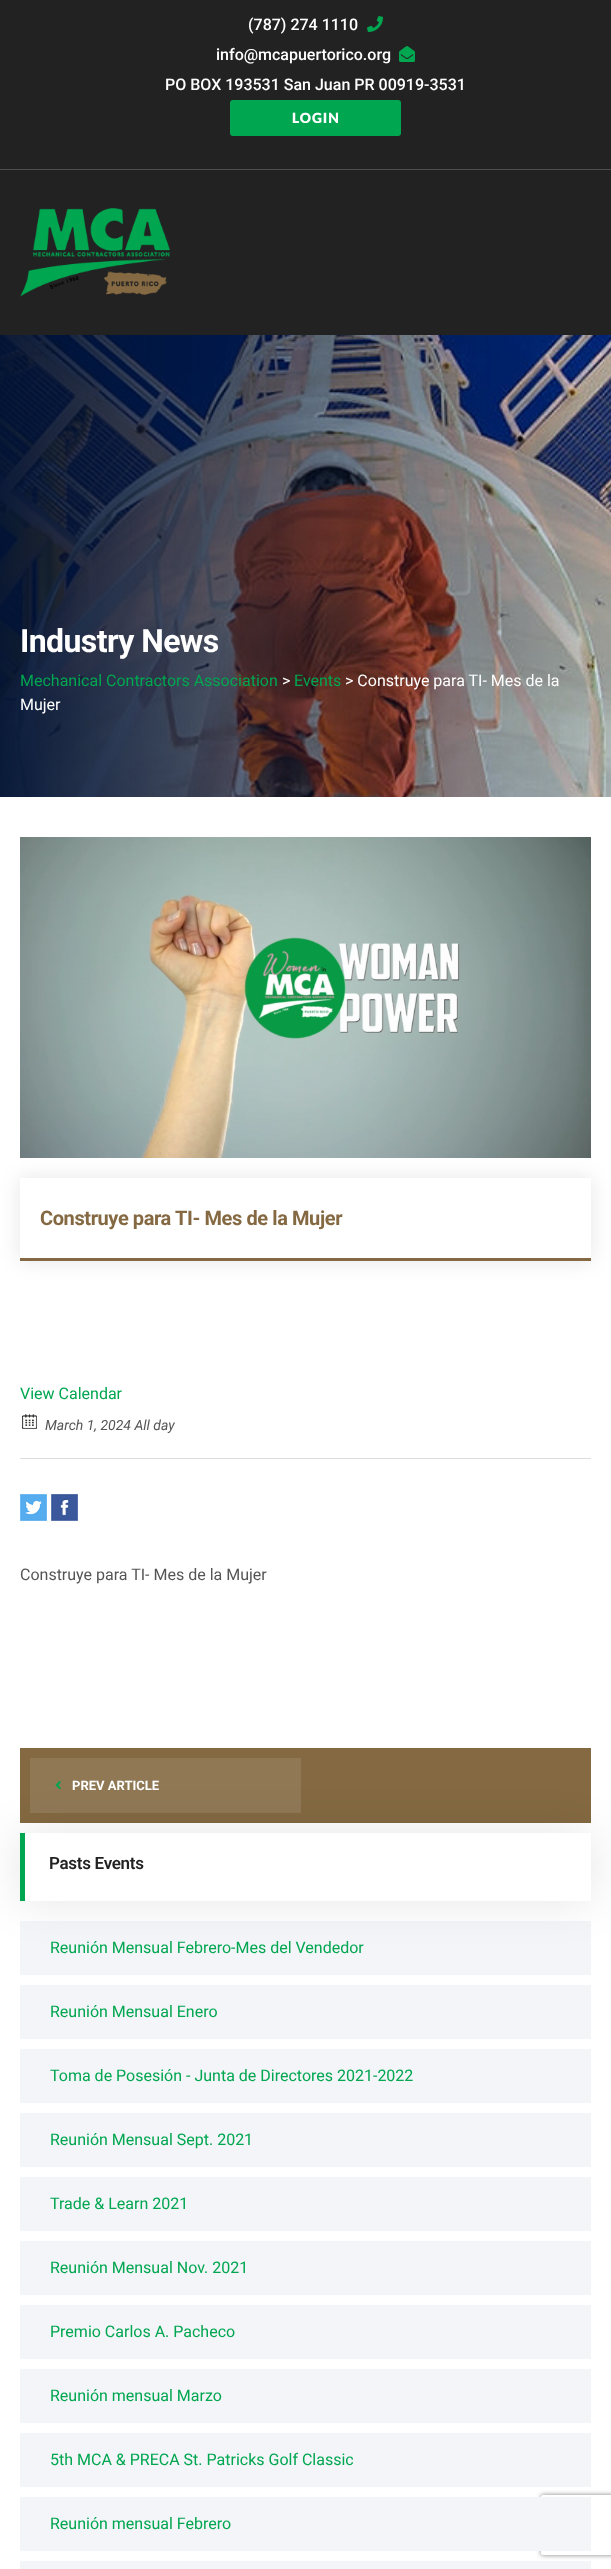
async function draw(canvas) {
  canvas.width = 611;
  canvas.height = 2569;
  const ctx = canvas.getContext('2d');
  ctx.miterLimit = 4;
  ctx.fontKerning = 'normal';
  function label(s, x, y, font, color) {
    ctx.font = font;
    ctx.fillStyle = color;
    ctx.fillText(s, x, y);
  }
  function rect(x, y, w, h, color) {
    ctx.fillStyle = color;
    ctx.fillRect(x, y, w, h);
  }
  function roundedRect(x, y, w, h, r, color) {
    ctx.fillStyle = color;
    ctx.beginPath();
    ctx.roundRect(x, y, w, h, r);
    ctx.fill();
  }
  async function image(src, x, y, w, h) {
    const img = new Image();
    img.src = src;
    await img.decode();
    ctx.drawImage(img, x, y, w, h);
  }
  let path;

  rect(0, 0, 611, 2569, '#fff');
  rect(0, 0, 611, 335, '#222');
  rect(0, 169, 611, 1, '#4e4e4e');
  label('(787) 274 1110', 248, 30, '500 16px Roboto', '#fff');
  await image('assets/img1.png', 367, 16, 16, 16);
  label('info@mcapuertorico.org', 216, 60, '500 16px Roboto', '#fff');
  await image('assets/img2.png', 399, 46, 16, 16);
  label('PO BOX 193531 San Juan PR 00919-3531', 165, 90, '500 16px Roboto', '#fff');
  roundedRect(230, 100, 171, 36, 3, '#00a650');
  ctx.letterSpacing = '1px';
  label('LOGIN', 292, 123, '900 14px Lato', '#fff');
  await image('assets/img3.png', 20, 208, 150, 89);
  await image('assets/img4.png', 0, 335, 611, 462);
  ctx.letterSpacing = '-0.6px';
  label('Industry News', 20, 652, 'bold 32px Roboto', '#fff');
  ctx.letterSpacing = '0px';
  label('Mechanical Contractors Association', 20, 686, '16px Roboto', '#00a650');
  label('>', 282, 686, '16px Roboto', '#fff');
  label('Events', 294, 686, '16px Roboto', '#00a650');
  label('> Construye para TI- Mes de la', 345, 686, '16px Roboto', '#fff');
  label('Mujer', 20, 710, '16px Roboto', '#fff');
  await image('assets/img5.png', 20, 837, 571, 321);
  ctx.save();
  path = new Path2D('M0 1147H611V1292H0ZM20 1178H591V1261H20Z');
  ctx.clip(path, 'evenodd');
  ctx.fillStyle = '#0000001a';
  ctx.filter = 'blur(10px)';
  ctx.beginPath();
  ctx.rect(20, 1178, 571, 83);
  ctx.fill();
  ctx.filter = 'none';
  ctx.restore();
  rect(20, 1258, 571, 3, '#846942');
  ctx.letterSpacing = '-0.4px';
  label('Construye para TI- Mes de la Mujer', 40, 1225, 'bold 20px Roboto', '#846942');
  ctx.letterSpacing = '0px';
  label('View Calendar', 20, 1399, '16px Roboto', '#00a650');
  await image('assets/img6.png', 22, 1414, 15, 15);
  label('March 1, 2024 All day', 45, 1430, 'italic 14px Roboto', '#555');
  rect(20, 1458, 571, 1, '#ddd');
  await image('assets/img7.png', 20, 1494, 27, 27);
  await image('assets/img8.png', 51, 1494, 27, 27);
  label('Construye para TI- Mes de la Mujer', 20, 1580, '16px Roboto', '#555');
  rect(20, 1748, 571, 75, '#846942');
  rect(30, 1758, 271, 55, '#907855');
  await image('assets/img9.png', 55, 1781, 6, 9);
  label('PREV ARTICLE', 72, 1790, 'bold 13px Roboto', '#fff');
  rect(20, 1921, 571, 54, '#f3f5f9');
  ctx.save();
  path = new Path2D('M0 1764H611V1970H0ZM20 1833H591V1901H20Z');
  ctx.clip(path, 'evenodd');
  ctx.fillStyle = '#0000001a';
  ctx.filter = 'blur(22.5px)';
  ctx.beginPath();
  ctx.rect(20, 1833, 571, 68);
  ctx.fill();
  ctx.filter = 'none';
  ctx.restore();
  rect(20, 1833, 5, 68, '#00a650');
  ctx.letterSpacing = '-0.3px';
  label('Pasts Events', 49, 1869, '600 17px Roboto', '#222');
  ctx.letterSpacing = '0px';
  label('Reunión Mensual Febrero-Mes del Vendedor', 50, 1953, '16px Roboto', '#00a650');
  rect(20, 1985, 571, 54, '#f3f5f9');
  label('Reunión Mensual Enero', 50, 2017, '16px Roboto', '#00a650');
  rect(20, 2049, 571, 54, '#f3f5f9');
  label('Toma de Posesión - Junta de Directores 2021-2022', 50, 2081, '16px Roboto', '#00a650');
  rect(20, 2113, 571, 54, '#f3f5f9');
  label('Reunión Mensual Sept. 2021', 50, 2145, '16px Roboto', '#00a650');
  rect(20, 2177, 571, 54, '#f3f5f9');
  label('Trade & Learn 2021', 50, 2209, '16px Roboto', '#00a650');
  rect(20, 2241, 571, 54, '#f3f5f9');
  label('Reunión Mensual Nov. 2021', 50, 2273, '16px Roboto', '#00a650');
  rect(20, 2305, 571, 54, '#f3f5f9');
  label('Premio Carlos A. Pacheco', 50, 2337, '16px Roboto', '#00a650');
  rect(20, 2369, 571, 54, '#f3f5f9');
  label('Reunión mensual Marzo', 50, 2401, '16px Roboto', '#00a650');
  ctx.save();
  path = new Path2D('M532 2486H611V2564H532ZM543 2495H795C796 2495 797 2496 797 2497V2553C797 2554 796 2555 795 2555H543C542 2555 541 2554 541 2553V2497C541 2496 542 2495 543 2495Z');
  ctx.clip(path, 'evenodd');
  ctx.fillStyle = '#808080';
  ctx.filter = 'blur(2.5px)';
  ctx.beginPath();
  ctx.roundRect(541, 2495, 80, 60, 2);
  ctx.fill();
  ctx.filter = 'none';
  ctx.restore();
  rect(20, 2433, 571, 54, '#f3f5f9');
  label('5th MCA & PRECA St. Patricks Golf Classic', 50, 2465, '16px Roboto', '#00a650');
  rect(20, 2497, 571, 54, '#f3f5f9');
  label('Reunión mensual Febrero', 50, 2529, '16px Roboto', '#00a650');
  rect(20, 2561, 571, 8, '#f3f5f9');
}

draw(document.querySelector('canvas'));
